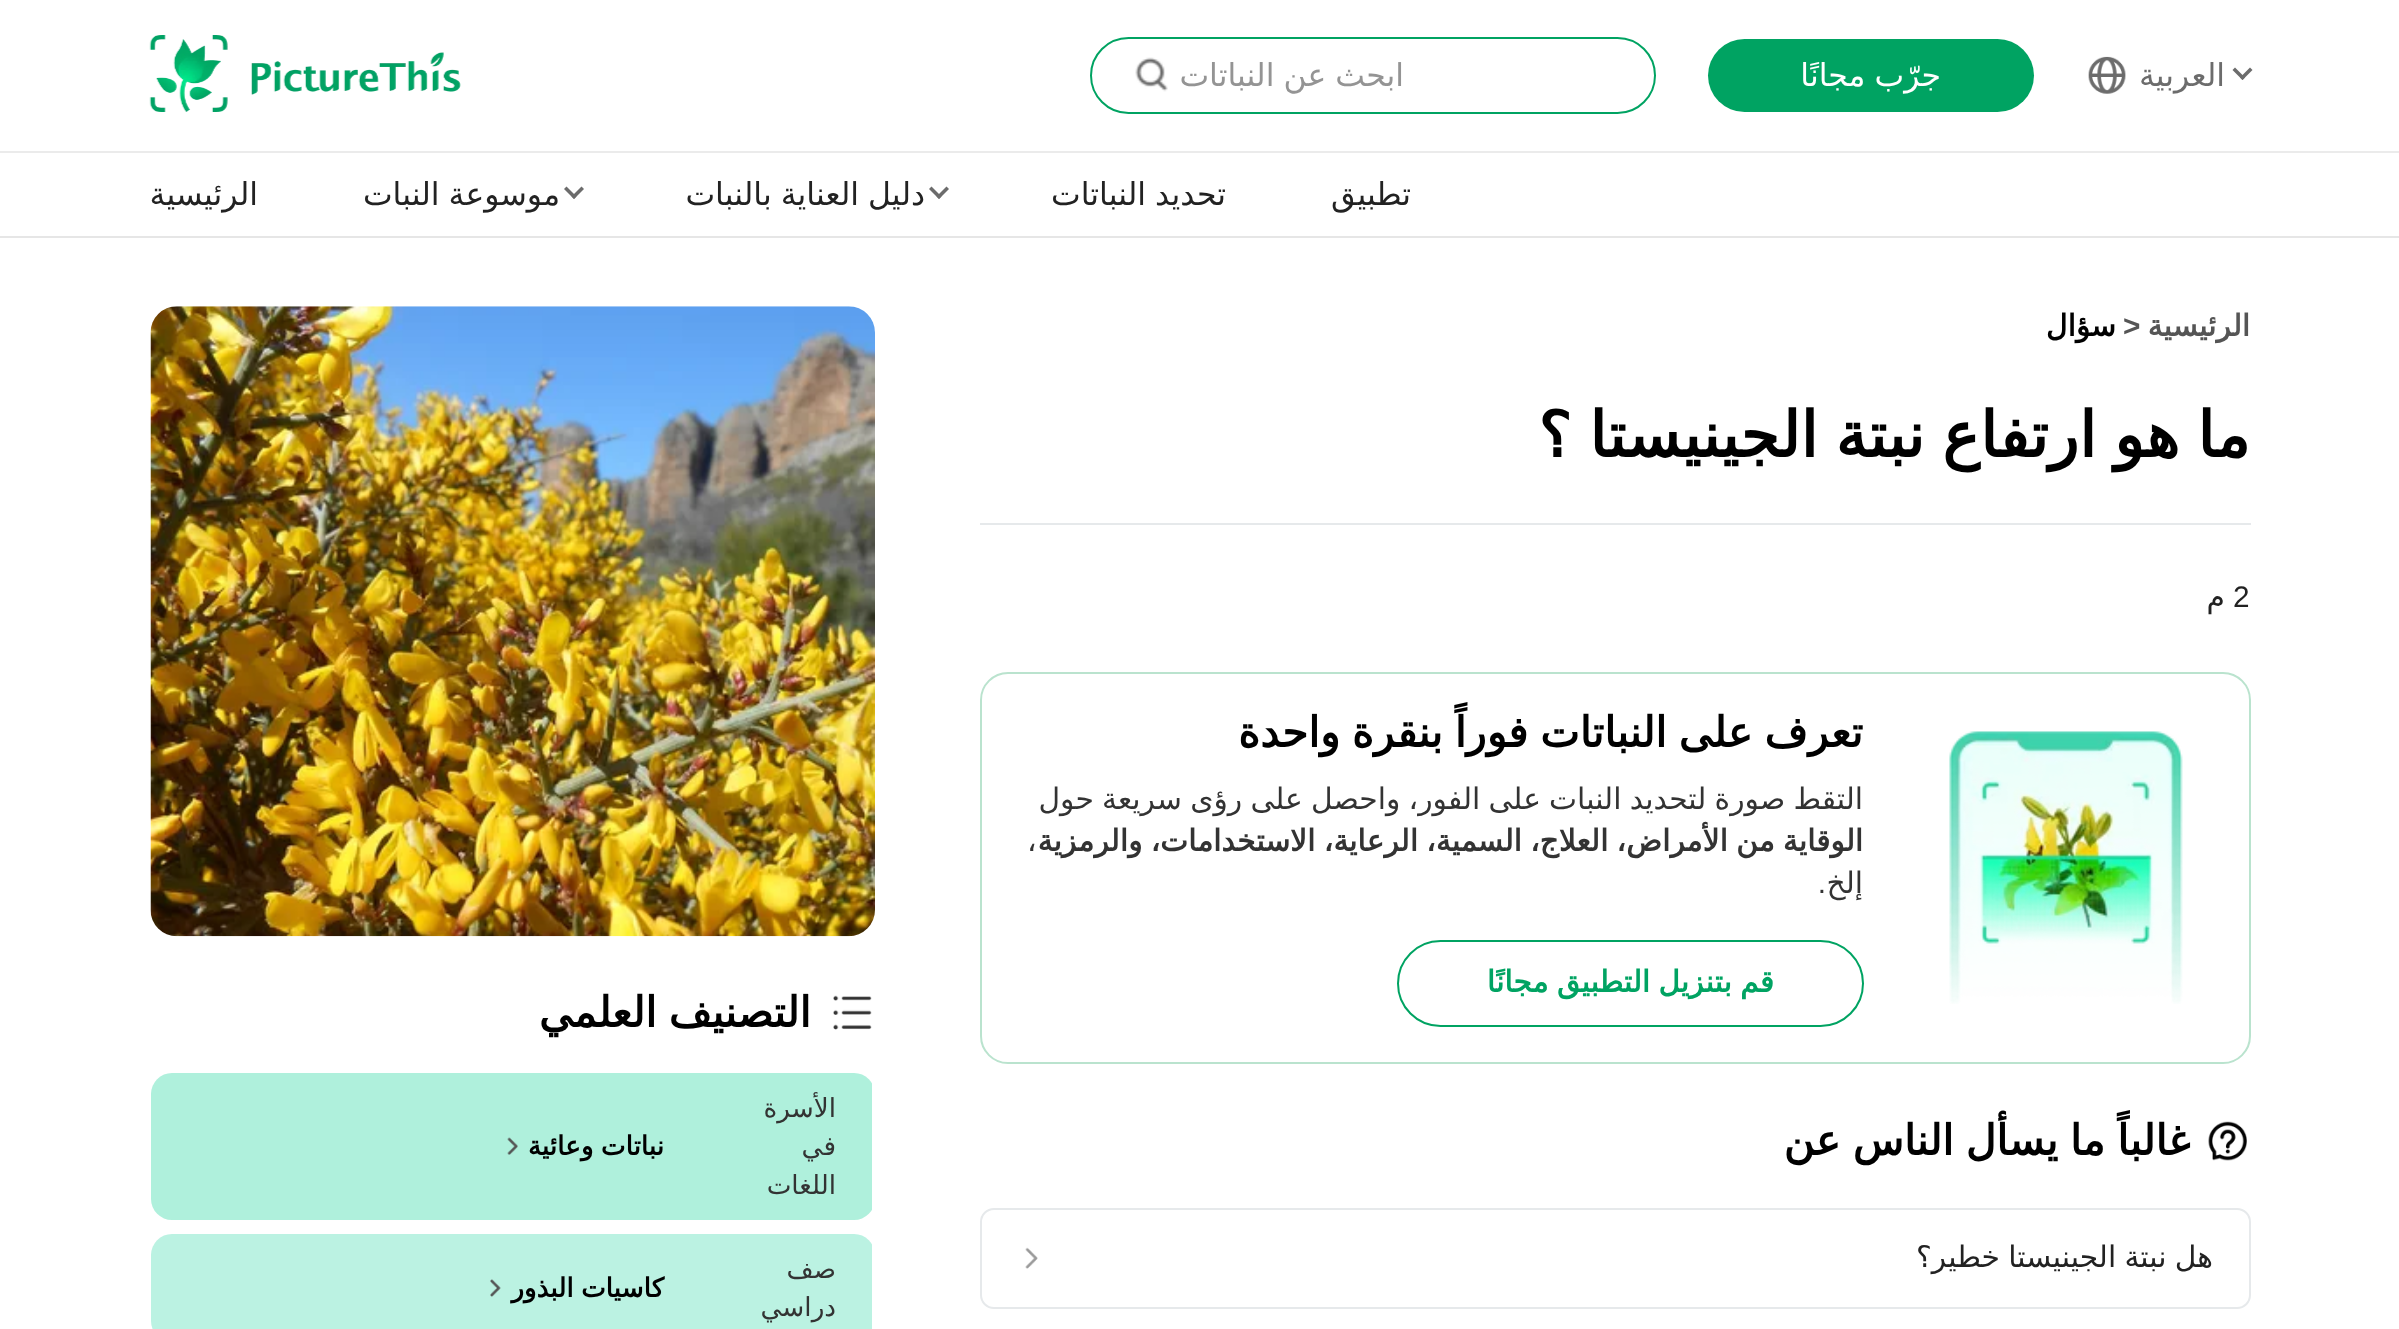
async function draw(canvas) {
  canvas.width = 2399;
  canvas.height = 1329;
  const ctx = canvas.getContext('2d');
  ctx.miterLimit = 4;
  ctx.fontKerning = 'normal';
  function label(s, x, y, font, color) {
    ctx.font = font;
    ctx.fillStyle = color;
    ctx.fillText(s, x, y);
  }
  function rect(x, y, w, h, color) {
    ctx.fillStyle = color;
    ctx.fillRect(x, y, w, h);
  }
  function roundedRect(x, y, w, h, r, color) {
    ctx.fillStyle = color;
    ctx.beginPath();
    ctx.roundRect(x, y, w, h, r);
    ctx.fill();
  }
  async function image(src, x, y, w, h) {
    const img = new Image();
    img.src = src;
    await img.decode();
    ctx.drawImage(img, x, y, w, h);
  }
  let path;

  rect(0, 0, 2399, 1329, '#fff');
  rect(0, 236, 2399, 2, '#e6e6e6');
  rect(0, 151, 2399, 2, '#ebebeb');
  ctx.fillStyle = '#6c6c6c';
  path = new Path2D('M2242.5 80L2232.5 70L2235 67.5L2245 77.5Z');
  ctx.fill(path);
  path = new Path2D('M2242.5 80L2240 77.5L2250 67.5L2252.5 70Z');
  ctx.fill(path);
  ctx.direction = 'rtl';
  label('العربية', 2225, 86, '31.5px DejaVu Sans', '#6c6c6c');
  await image('assets/img1.png', 2088, 56, 38, 38);
  roundedRect(1708, 39, 326, 73, 36.5, '#00a362');
  ctx.wordSpacing = '-1px';
  label('جرّب مجانًا', 1941, 86, '31.5px DejaVu Sans', '#fff');
  ctx.beginPath();
  ctx.roundRect(1091, 38, 564, 75, 37.5);
  ctx.strokeStyle = '#00a362';
  ctx.lineWidth = 2;
  ctx.stroke();
  label('ابحث عن النباتات', 1404, 86, '31.5px DejaVu Sans', '#949494');
  await image('assets/img2.png', 1135, 57, 33, 35);
  await image('assets/img3.png', 149, 35, 312, 77);
  ctx.wordSpacing = '0px';
  label('تطبيق', 1411, 205, '31.5px DejaVu Sans', '#222');
  ctx.wordSpacing = '-1px';
  label('تحديد النباتات', 1226, 205, '31.5px DejaVu Sans', '#222');
  ctx.fillStyle = '#6c6c6c';
  path = new Path2D('M939 199L929 189L931.5 186.5L941.5 196.5Z');
  ctx.fill(path);
  path = new Path2D('M939 199L936.5 196.5L946.5 186.5L949 189Z');
  ctx.fill(path);
  label('دليل العناية بالنبات', 925, 205, '31.5px DejaVu Sans', '#222');
  ctx.fillStyle = '#6c6c6c';
  path = new Path2D('M574 199L564 189L566.5 186.5L576.5 196.5Z');
  ctx.fill(path);
  path = new Path2D('M574 199L571.5 196.5L581.5 186.5L584 189Z');
  ctx.fill(path);
  label('موسوعة النبات', 560, 205, '31.5px DejaVu Sans', '#222');
  ctx.wordSpacing = '0px';
  label('الرئيسية', 258, 205, '31.5px DejaVu Sans', '#222');
  label('الرئيسية', 2250, 336, 'bold 29.75px DejaVu Sans', '#555');
  ctx.direction = 'ltr';
  label('>', 2123, 336, 'bold 29.75px Liberation Sans', '#555');
  ctx.direction = 'rtl';
  label('سؤال', 2116, 336, 'bold 29.75px DejaVu Sans', '#000');
  ctx.wordSpacing = '-2.5px';
  label('ما هو ارتفاع نبتة الجينيستا ؟', 2250, 457, 'bold 63px DejaVu Sans', '#000');
  rect(980, 523, 1271, 2, '#e6e9eb');
  ctx.wordSpacing = '0px';
  ctx.direction = 'ltr';
  label('2', 2233, 607, '29.75px Liberation Sans', '#222');
  ctx.direction = 'rtl';
  label('م', 2225, 607, '29.75px DejaVu Sans', '#222');
  ctx.beginPath();
  ctx.roundRect(981, 673, 1269, 390, 27);
  ctx.strokeStyle = '#bae3ce';
  ctx.stroke();
  await image('assets/img4.png', 1949, 731, 234, 273);
  ctx.wordSpacing = '-1.5px';
  label('تعرف على النباتات فوراً بنقرة واحدة', 1863, 747, 'bold 42px DejaVu Sans', '#000');
  ctx.wordSpacing = '-1.25px';
  label('التقط صورة لتحديد النبات على الفور، واحصل على رؤى سريعة حول', 1863, 809, '29.75px DejaVu Sans', '#333');
  label('الوقاية من الأمراض، العلاج، السمية، الرعاية، الاستخدامات، والرمزية', 1863, 851, 'bold 29.75px DejaVu Sans', '#333');
  ctx.wordSpacing = '0px';
  ctx.direction = 'ltr';
  label('،', 1027, 851, '29.75px DejaVu Sans', '#333');
  ctx.direction = 'rtl';
  label('إلخ', 1863, 893, '29.75px DejaVu Sans', '#333');
  label('.', 1826, 893, '29.75px Liberation Sans', '#333');
  ctx.beginPath();
  ctx.roundRect(1398, 941, 465, 85, 42.5);
  ctx.strokeStyle = '#00a362';
  ctx.stroke();
  ctx.wordSpacing = '-1.25px';
  label('قم بتنزيل التطبيق مجانًا', 1774, 992, 'bold 29.75px DejaVu Sans', '#00a362');
  await image('assets/img5.png', 2208, 1121, 39, 40);
  ctx.wordSpacing = '-1.5px';
  label('غالباً ما يسأل الناس عن', 2190, 1155, 'bold 42px DejaVu Sans', '#000');
  ctx.beginPath();
  ctx.roundRect(981, 1209, 1269, 99, 13);
  ctx.strokeStyle = '#e6e9eb';
  ctx.stroke();
  ctx.wordSpacing = '-1.25px';
  label('هل نبتة الجينيستا خطير؟', 2213, 1267, '29.75px DejaVu Sans', '#222');
  await image('assets/img6.png', 1025, 1247, 13, 22);
  await image('assets/img7.png', 150, 306, 725, 631);
  await image('assets/img8.png', 833, 995, 39, 35);
  ctx.wordSpacing = '-1.5px';
  label('التصنيف العلمي', 811, 1027, 'bold 42px DejaVu Sans', '#000');
  roundedRect(151, 1073, 724, 147, 21, '#aff0dc');
  rect(872, 1083, 3, 127, '#fff');
  ctx.wordSpacing = '0px';
  label('الأسرة', 836, 1117, '26.25px DejaVu Sans', '#333');
  label('في', 836, 1155, '26.25px DejaVu Sans', '#333');
  label('اللغات', 836, 1194, '26.25px DejaVu Sans', '#333');
  ctx.wordSpacing = '-1px';
  label('نباتات وعائية', 664, 1155, 'bold 26.25px DejaVu Sans', '#000');
  await image('assets/img9.png', 507, 1137, 11, 18);
  roundedRect(151, 1234, 724, 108, 21, '#bbf2e2');
  rect(872, 1244, 3, 85, '#fff');
  ctx.wordSpacing = '0px';
  label('صف', 836, 1278, '26.25px DejaVu Sans', '#333');
  label('دراسي', 836, 1316, '26.25px DejaVu Sans', '#333');
  ctx.wordSpacing = '-1px';
  label('كاسيات البذور', 664, 1297, 'bold 26.25px DejaVu Sans', '#000');
  await image('assets/img10.png', 490, 1279, 11, 18);
}

draw(document.querySelector('canvas'));
